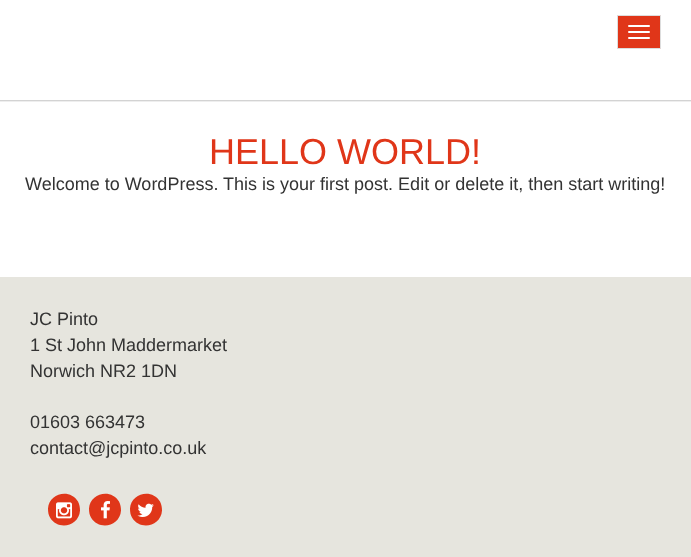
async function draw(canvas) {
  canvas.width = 691;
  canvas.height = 557;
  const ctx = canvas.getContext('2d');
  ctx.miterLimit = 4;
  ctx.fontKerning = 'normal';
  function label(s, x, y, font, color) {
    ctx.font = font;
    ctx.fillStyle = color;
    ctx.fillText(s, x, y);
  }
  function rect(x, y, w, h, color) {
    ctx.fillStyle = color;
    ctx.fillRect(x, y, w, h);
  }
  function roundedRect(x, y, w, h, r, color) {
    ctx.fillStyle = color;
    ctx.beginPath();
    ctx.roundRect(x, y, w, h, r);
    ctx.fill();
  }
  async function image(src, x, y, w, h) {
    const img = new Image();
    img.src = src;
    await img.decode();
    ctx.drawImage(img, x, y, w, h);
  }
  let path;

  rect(0, 0, 691, 557, '#fff');
  ctx.fillStyle = '#e03619';
  ctx.beginPath();
  ctx.rect(617.5, 15.5, 43, 33);
  ctx.fill();
  ctx.strokeStyle = '#ddd';
  ctx.stroke();
  roundedRect(628, 25, 22, 2, 1, '#fff');
  roundedRect(628, 31, 22, 2, 1, '#fff');
  roundedRect(628, 37, 22, 2, 1, '#fff');
  rect(0, 100, 691, 1, '#d3d3d3');
  rect(0, 101, 691, 1, '#eee');
  label('HELLO WORLD!', 209, 164, '36px Liberation Sans', '#e03619');
  label('Welcome to WordPress. This is your first post. Edit or delete it, then start writing!', 25, 190, '18px Liberation Sans', '#333');
  rect(0, 277, 691, 280, '#e6e5de');
  label('JC Pinto', 30, 325, '18px Liberation Sans', '#333');
  label('1 St John Maddermarket', 30, 351, '18px Liberation Sans', '#333');
  label('Norwich NR2 1DN', 30, 377, '18px Liberation Sans', '#333');
  label('01603 663473', 30, 428, '18px Liberation Sans', '#333');
  label('contact@jcpinto.co.uk', 30, 454, '18px Liberation Sans', '#333');
  ctx.fillStyle = '#e03619';
  path = new Path2D('M78 501.5C79.5 504.5 80 507.5 80 510.5C79 526.5 58 531 50 517.5C48.5 515 48 512 48 508.5C49 493 70 488 78 501.5Z');
  ctx.fill(path);
  await image('assets/img1.png', 56, 502, 16, 17);
  path = new Path2D('M119 501.5C120.5 504.5 121 507.5 121 510.5C120 526.5 99 531 91 517.5C89.5 515 89 512 89 508.5C90 493 111 488 119 501.5Z');
  ctx.fill(path);
  await image('assets/img2.png', 101, 501, 9, 18);
  path = new Path2D('M160 501.5C161.5 504.5 162 507.5 162 510.5C161 526.5 140 531 132 517.5C130.5 515 130 512 130 508.5C131 493 152 488 160 501.5Z');
  ctx.fill(path);
  await image('assets/img3.png', 137, 503, 17, 14);
}

draw(document.querySelector('canvas'));
